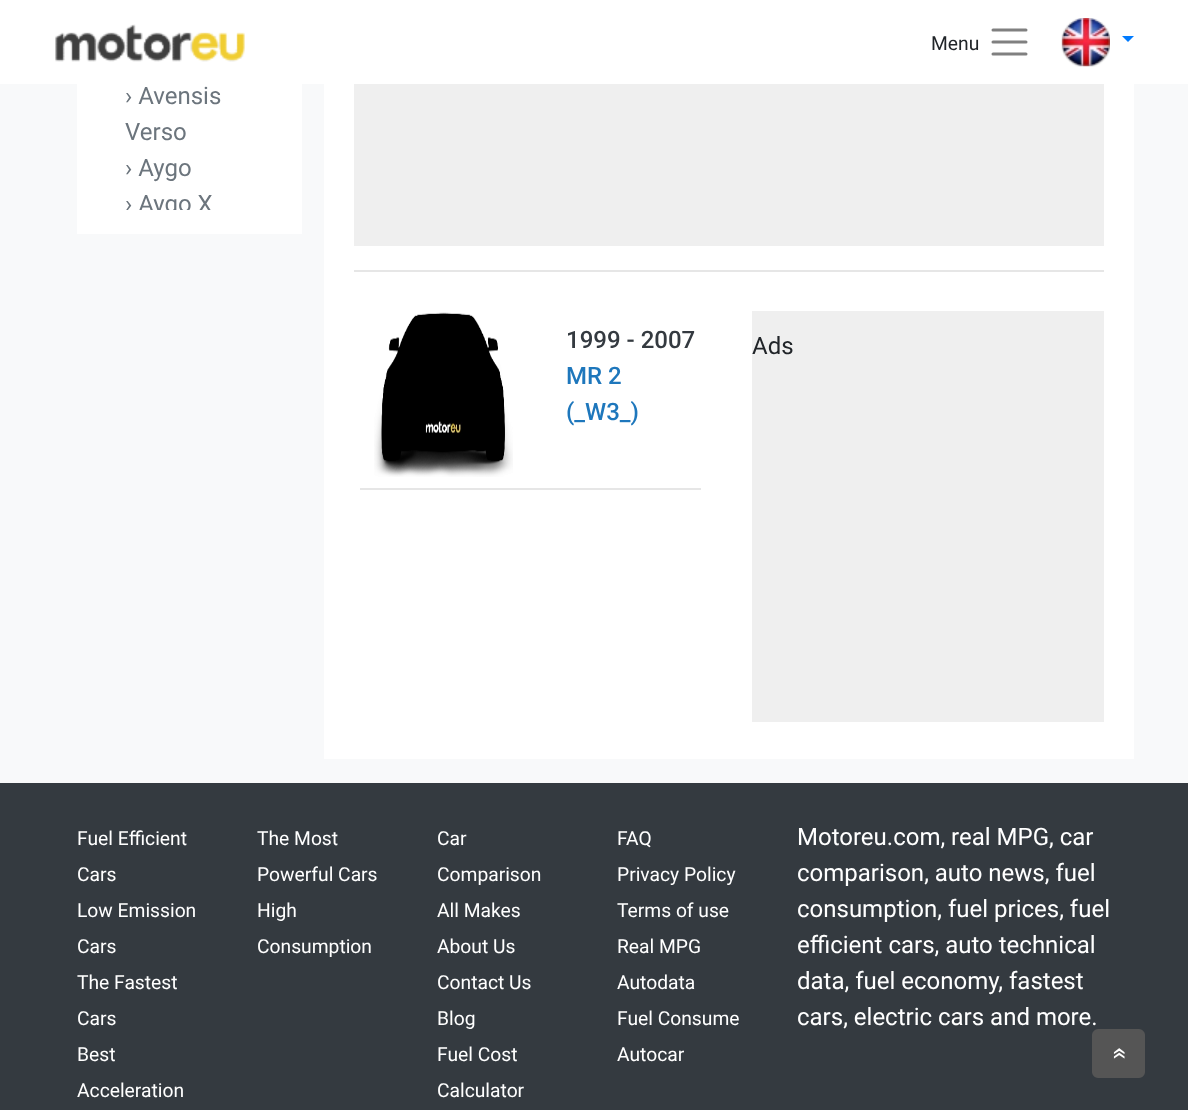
async function draw(canvas) {
  canvas.width = 1188;
  canvas.height = 1110;
  const ctx = canvas.getContext('2d');
  ctx.miterLimit = 4;
  ctx.fontKerning = 'normal';
  function label(s, x, y, font, color) {
    ctx.font = font;
    ctx.fillStyle = color;
    ctx.fillText(s, x, y);
  }
  function rect(x, y, w, h, color) {
    ctx.fillStyle = color;
    ctx.fillRect(x, y, w, h);
  }
  async function image(src, x, y, w, h) {
    const img = new Image();
    img.src = src;
    await img.decode();
    ctx.drawImage(img, x, y, w, h);
  }
  let path;

  rect(0, 0, 1188, 1110, '#f8f9fa');
  rect(0, 0, 1188, 84, '#fff');
  await image('assets/img1.png', 55, 24, 190, 38);
  label('Menu', 931, 50, '19.25px Roboto', '#212529');
  path = new Path2D('M993 30H1026M993 42H1026M993 54H1026');
  ctx.strokeStyle = '#808080';
  ctx.lineWidth = 3;
  ctx.lineCap = 'round';
  ctx.stroke(path);
  await image('assets/img2.png', 1061, 18, 49, 49);
  ctx.fillStyle = '#007bff';
  path = new Path2D('M1122 36H1134L1128 42Z');
  ctx.fill(path);
  rect(77, 84, 225, 150, '#fff');
  label('› Avensis', 125, 104, '24px Roboto', '#6c757d');
  label('Verso', 125, 140, '24px Roboto', '#6c757d');
  label('› Aygo', 125, 176, '24px Roboto', '#6c757d');
  ctx.save();
  ctx.beginPath();
  ctx.rect(101, 0, 177, 210);
  ctx.clip();
  label('› Aygo X', 125, 212, '24px Roboto', '#6c757d');
  ctx.restore();
  rect(324, 84, 810, 675, '#fff');
  rect(354, 84, 750, 162, '#efefef');
  rect(354, 270, 750, 2, '#e6e6e6');
  await image('assets/img3.png', 374, 312, 139, 165);
  label('1999 - 2007', 566, 348, '500 24px Roboto', '#343a40');
  label('MR 2', 566, 384, '500 24px Roboto', '#1e77bc');
  label('(_W3_)', 566, 420, '500 24px Roboto', '#1e77bc');
  rect(360, 488, 341, 2, '#e6e6e6');
  rect(752, 311, 352, 411, '#efefef');
  label('Ads', 752, 354, '24px Roboto', '#212529');
  rect(0, 783, 1188, 327, '#343a40');
  label('Fuel Efficient', 77, 845, '19.25px Roboto', '#fff');
  label('Cars', 77, 881, '19.25px Roboto', '#fff');
  label('Low Emission', 77, 917, '19.25px Roboto', '#fff');
  label('Cars', 77, 953, '19.25px Roboto', '#fff');
  label('The Fastest', 77, 989, '19.25px Roboto', '#fff');
  label('Cars', 77, 1025, '19.25px Roboto', '#fff');
  label('Best', 77, 1061, '19.25px Roboto', '#fff');
  label('Acceleration', 77, 1097, '19.25px Roboto', '#fff');
  label('The Most', 257, 845, '19.25px Roboto', '#fff');
  label('Powerful Cars', 257, 881, '19.25px Roboto', '#fff');
  label('High', 257, 917, '19.25px Roboto', '#fff');
  label('Consumption', 257, 953, '19.25px Roboto', '#fff');
  label('Car', 437, 845, '19.25px Roboto', '#fff');
  label('Comparison', 437, 881, '19.25px Roboto', '#fff');
  label('All Makes', 437, 917, '19.25px Roboto', '#fff');
  label('About Us', 437, 953, '19.25px Roboto', '#fff');
  label('Contact Us', 437, 989, '19.25px Roboto', '#fff');
  label('Blog', 437, 1025, '19.25px Roboto', '#fff');
  label('Fuel Cost', 437, 1061, '19.25px Roboto', '#fff');
  label('Calculator', 437, 1097, '19.25px Roboto', '#fff');
  label('FAQ', 617, 845, '19.25px Roboto', '#fff');
  label('Privacy Policy', 617, 881, '19.25px Roboto', '#fff');
  label('Terms of use', 617, 917, '19.25px Roboto', '#fff');
  label('Real MPG', 617, 953, '19.25px Roboto', '#fff');
  label('Autodata', 617, 989, '19.25px Roboto', '#fff');
  label('Fuel Consume', 617, 1025, '19.25px Roboto', '#fff');
  label('Autocar', 617, 1061, '19.25px Roboto', '#fff');
  label('Motoreu.com, real MPG, car', 797, 845, '24px Roboto', '#fff');
  label('comparison, auto news, fuel', 797, 881, '24px Roboto', '#fff');
  label('consumption, fuel prices, fuel', 797, 917, '24px Roboto', '#fff');
  label('efficient cars, auto technical', 797, 953, '24px Roboto', '#fff');
  label('data, fuel economy, fastest', 797, 989, '24px Roboto', '#fff');
  label('cars, electric cars and more.', 797, 1025, '24px Roboto', '#fff');
  ctx.fillStyle = '#555';
  path = new Path2D('M1145 1035V1072C1145 1075 1142 1078 1139 1078H1098C1095 1078 1092 1075 1092 1072V1035C1092 1032 1095 1029 1098 1029H1139C1142 1029 1145 1032 1145 1035Z');
  ctx.fill(path);
  ctx.font = '27px Roboto';
  ctx.fillStyle = '#fff';
  ctx.save();
  ctx.translate(1112, 1047);
  ctx.rotate(90 * Math.PI / 180);
  ctx.fillText('«', 0, 0);
  ctx.restore();
}

draw(document.querySelector('canvas'));
